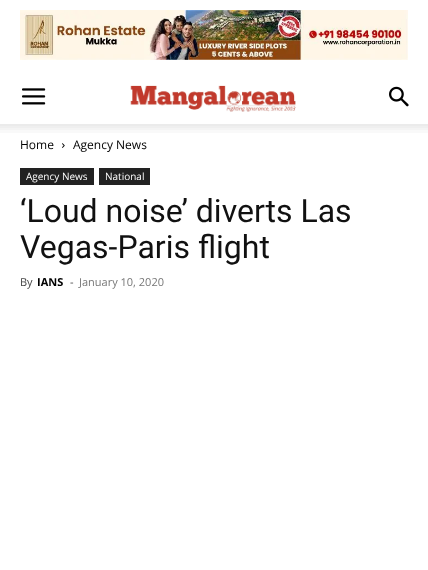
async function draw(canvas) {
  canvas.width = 428;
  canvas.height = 570;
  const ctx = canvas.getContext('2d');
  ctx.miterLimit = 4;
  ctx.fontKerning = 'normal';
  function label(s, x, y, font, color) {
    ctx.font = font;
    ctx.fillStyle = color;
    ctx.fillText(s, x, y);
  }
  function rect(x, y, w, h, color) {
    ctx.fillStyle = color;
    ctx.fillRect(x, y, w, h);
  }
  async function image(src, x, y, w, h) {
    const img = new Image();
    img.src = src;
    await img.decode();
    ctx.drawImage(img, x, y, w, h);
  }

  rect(0, 0, 428, 570, '#fff');
  await image('assets/img1.png', 20, 10, 388, 50);
  await image('assets/img2.png', 22, 88, 24, 17);
  await image('assets/img3.png', 130, 85, 166, 27);
  await image('assets/img4.png', 389, 86, 20, 21);
  await image('assets/img5.png', 0, 124, 428, 9);
  label('Home', 20, 149, '12px Open Sans', '#000');
  await image('assets/img6.png', 62, 143, 3, 5);
  label('Agency News', 73, 149, '12px Open Sans', '#000');
  rect(20, 168, 74, 17, '#222');
  label('Agency News', 26, 180, '10px Open Sans', '#fff');
  rect(99, 168, 51, 17, '#222');
  label('National', 105, 180, '10px Open Sans', '#fff');
  label('‘Loud noise’ diverts Las', 20, 222, '32px Roboto', '#111');
  label('Vegas-Paris flight', 20, 258, '32px Roboto', '#111');
  label('By', 20, 286, '11px Open Sans', '#444');
  label('IANS', 37, 286, 'bold 11px Open Sans', '#000');
  label('-', 70, 286, '11px Open Sans', '#444');
  label('January 10, 2020', 79, 286, '11px Open Sans', '#767676');
}

draw(document.querySelector('canvas'));
